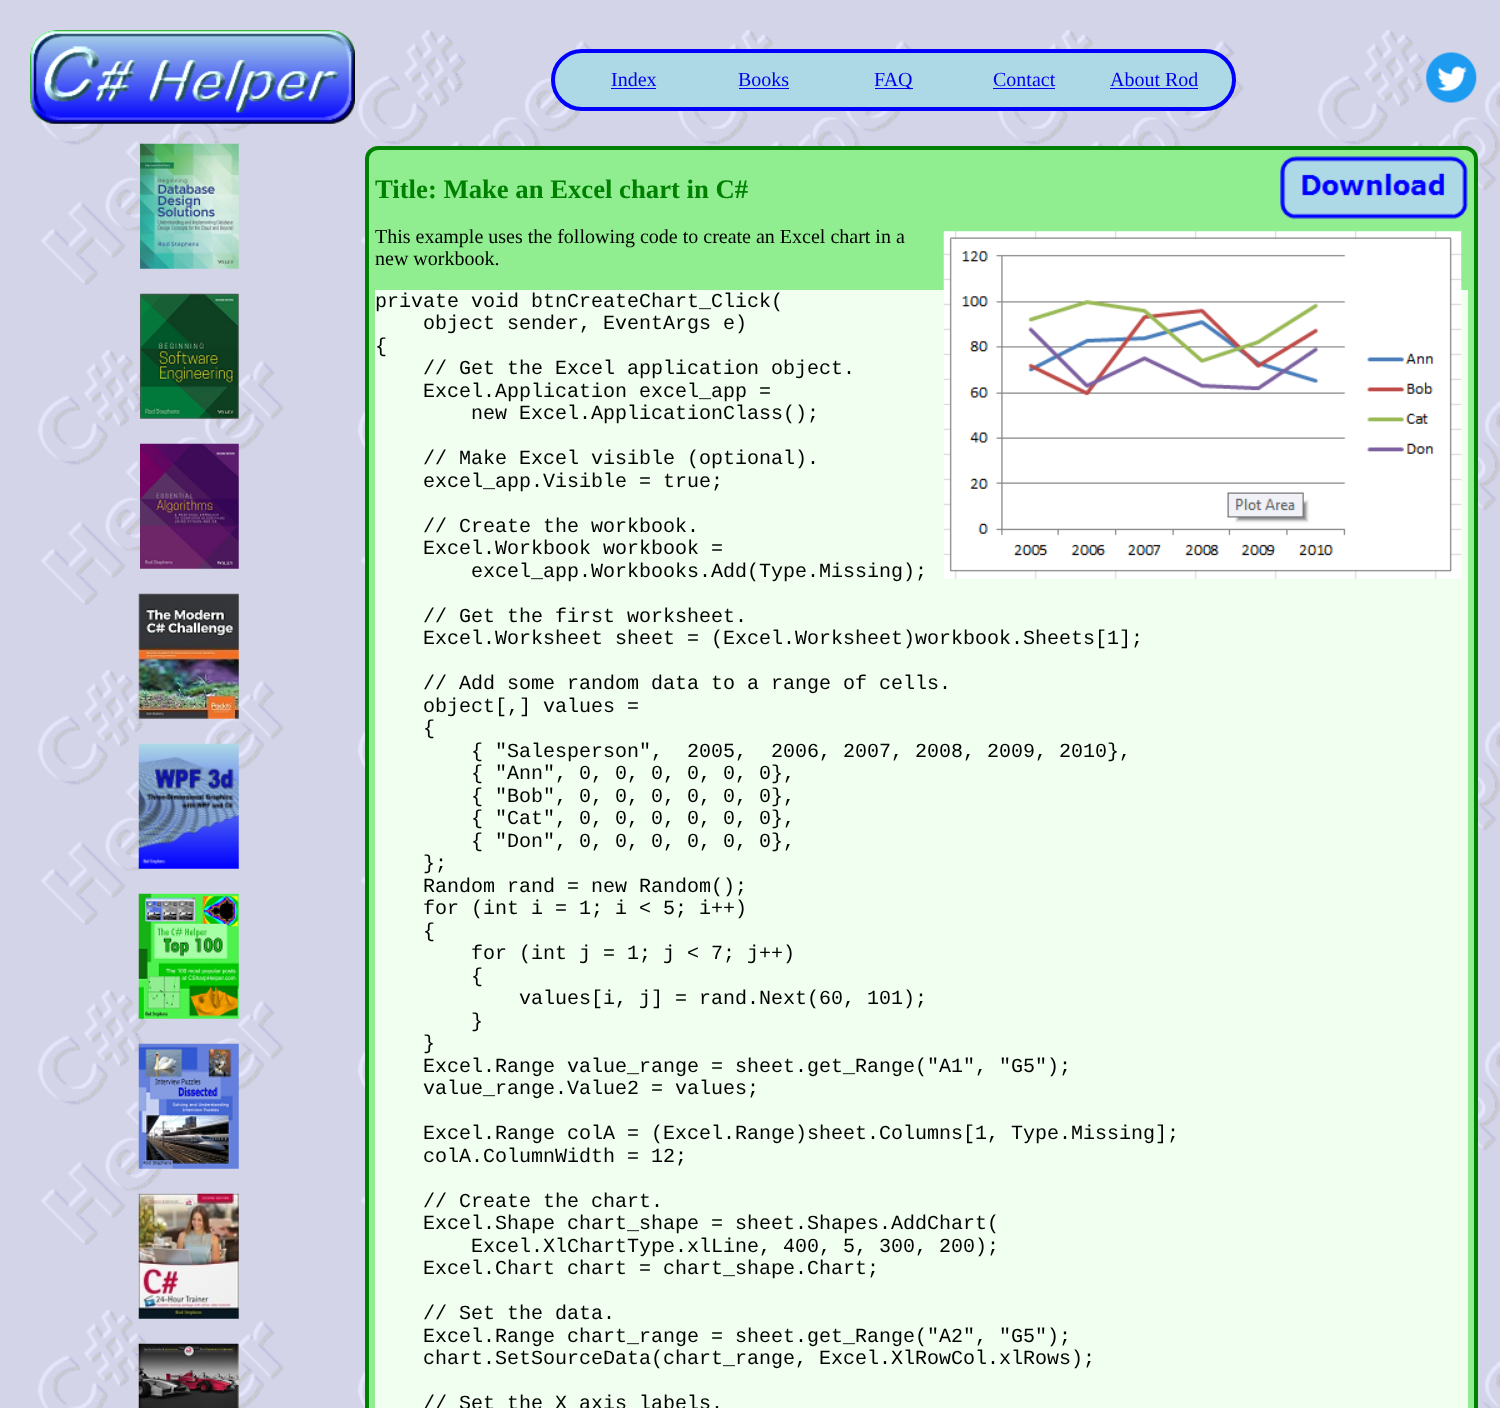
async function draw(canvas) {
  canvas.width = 1500;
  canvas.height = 1408;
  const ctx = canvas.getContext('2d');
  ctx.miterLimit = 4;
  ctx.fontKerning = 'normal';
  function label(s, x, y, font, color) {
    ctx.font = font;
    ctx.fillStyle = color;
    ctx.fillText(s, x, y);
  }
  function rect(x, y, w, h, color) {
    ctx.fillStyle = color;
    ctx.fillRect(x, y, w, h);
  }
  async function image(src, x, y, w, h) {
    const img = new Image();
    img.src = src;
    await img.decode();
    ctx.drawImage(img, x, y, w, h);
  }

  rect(0, 0, 1500, 1408, '#fff');
  await image('assets/img1.png', 0, 0, 1500, 1408);
  await image('assets/img2.png', 30, 30, 325, 94);
  ctx.fillStyle = '#add8e6';
  ctx.beginPath();
  ctx.roundRect(553, 51, 681, 58, 29);
  ctx.fill();
  ctx.strokeStyle = '#00f';
  ctx.lineWidth = 4;
  ctx.stroke();
  label('Index', 611, 86, '20px Liberation Serif', '#00e');
  rect(611, 88, 45, 1, '#00e');
  label('Books', 738, 86, '20px Liberation Serif', '#00e');
  rect(739, 88, 50, 1, '#00e');
  rect(875, 88, 38, 1, '#00e');
  label('FAQ', 874, 86, '20px Liberation Serif', '#00e');
  label('Contact', 993, 86, '20px Liberation Serif', '#00e');
  rect(993, 88, 62, 1, '#00e');
  label('About Rod', 1110, 86, '20px Liberation Serif', '#00e');
  rect(1110, 88, 88, 1, '#00e');
  await image('assets/img3.png', 1426, 52, 51, 51);
  await image('assets/img4.png', 140, 143, 99, 126);
  await image('assets/img5.png', 140, 293, 99, 126);
  await image('assets/img6.png', 140, 443, 99, 126);
  await image('assets/img7.png', 138, 593, 101, 126);
  await image('assets/img8.png', 138, 743, 101, 126);
  await image('assets/img9.png', 138, 893, 101, 126);
  await image('assets/img10.png', 138, 1043, 101, 126);
  await image('assets/img11.png', 138, 1193, 101, 126);
  await image('assets/img12.png', 138, 1343, 101, 65);
  ctx.fillStyle = '#90ee90';
  ctx.beginPath();
  ctx.roundRect(367, 148, 1109, 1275, 11);
  ctx.fill();
  ctx.strokeStyle = '#008000';
  ctx.stroke();
  label('Title: Make an Excel chart in C#', 375, 198, 'bold 26.7px Liberation Serif', '#008000');
  await image('assets/img13.png', 1280, 156, 188, 63);
  label('This example uses the following code to create an Excel chart in a', 375, 243, '20px Liberation Serif', '#000');
  label('new workbook.', 375, 265, '20px Liberation Serif', '#000');
  rect(375, 290, 1093, 1118, '#f0fff0');
  await image('assets/img14.png', 943, 231, 519, 348);
  label('private void btnCreateChart_Click(', 375, 307, '20px Liberation Mono', '#000');
  label('object sender, EventArgs e)', 423, 329, '20px Liberation Mono', '#000');
  label('{', 375, 352, '20px Liberation Mono', '#000');
  label('// Get the Excel application object.', 423, 374, '20px Liberation Mono', '#000');
  label('Excel.Application excel_app =', 423, 397, '20px Liberation Mono', '#000');
  label('new Excel.ApplicationClass();', 471, 419, '20px Liberation Mono', '#000');
  label('// Make Excel visible (optional).', 423, 464, '20px Liberation Mono', '#000');
  label('excel_app.Visible = true;', 423, 487, '20px Liberation Mono', '#000');
  label('// Create the workbook.', 423, 532, '20px Liberation Mono', '#000');
  label('Excel.Workbook workbook =', 423, 554, '20px Liberation Mono', '#000');
  label('excel_app.Workbooks.Add(Type.Missing);', 471, 577, '20px Liberation Mono', '#000');
  label('// Get the first worksheet.', 423, 622, '20px Liberation Mono', '#000');
  label('Excel.Worksheet sheet = (Excel.Worksheet)workbook.Sheets[1];', 423, 644, '20px Liberation Mono', '#000');
  label('// Add some random data to a range of cells.', 423, 689, '20px Liberation Mono', '#000');
  label('object[,] values =', 423, 712, '20px Liberation Mono', '#000');
  label('{', 423, 734, '20px Liberation Mono', '#000');
  label('{ "Salesperson",  2005,  2006, 2007, 2008, 2009, 2010},', 471, 757, '20px Liberation Mono', '#000');
  label('{ "Ann", 0, 0, 0, 0, 0, 0},', 471, 779, '20px Liberation Mono', '#000');
  label('{ "Bob", 0, 0, 0, 0, 0, 0},', 471, 802, '20px Liberation Mono', '#000');
  label('{ "Cat", 0, 0, 0, 0, 0, 0},', 471, 824, '20px Liberation Mono', '#000');
  label('{ "Don", 0, 0, 0, 0, 0, 0},', 471, 847, '20px Liberation Mono', '#000');
  label('};', 423, 869, '20px Liberation Mono', '#000');
  label('Random rand = new Random();', 423, 892, '20px Liberation Mono', '#000');
  label('for (int i = 1; i < 5; i++)', 423, 914, '20px Liberation Mono', '#000');
  label('{', 423, 937, '20px Liberation Mono', '#000');
  label('for (int j = 1; j < 7; j++)', 471, 959, '20px Liberation Mono', '#000');
  label('{', 471, 982, '20px Liberation Mono', '#000');
  label('values[i, j] = rand.Next(60, 101);', 519, 1004, '20px Liberation Mono', '#000');
  label('}', 471, 1027, '20px Liberation Mono', '#000');
  label('}', 423, 1049, '20px Liberation Mono', '#000');
  label('Excel.Range value_range = sheet.get_Range("A1", "G5");', 423, 1072, '20px Liberation Mono', '#000');
  label('value_range.Value2 = values;', 423, 1094, '20px Liberation Mono', '#000');
  label('Excel.Range colA = (Excel.Range)sheet.Columns[1, Type.Missing];', 423, 1139, '20px Liberation Mono', '#000');
  label('colA.ColumnWidth = 12;', 423, 1162, '20px Liberation Mono', '#000');
  label('// Create the chart.', 423, 1207, '20px Liberation Mono', '#000');
  label('Excel.Shape chart_shape = sheet.Shapes.AddChart(', 423, 1229, '20px Liberation Mono', '#000');
  label('Excel.XlChartType.xlLine, 400, 5, 300, 200);', 471, 1252, '20px Liberation Mono', '#000');
  label('Excel.Chart chart = chart_shape.Chart;', 423, 1274, '20px Liberation Mono', '#000');
  label('// Set the data.', 423, 1319, '20px Liberation Mono', '#000');
  label('Excel.Range chart_range = sheet.get_Range("A2", "G5");', 423, 1342, '20px Liberation Mono', '#000');
  label('chart.SetSourceData(chart_range, Excel.XlRowCol.xlRows);', 423, 1364, '20px Liberation Mono', '#000');
  label('// Set the X axis labels.', 423, 1409, '20px Liberation Mono', '#000');
}

draw(document.querySelector('canvas'));
